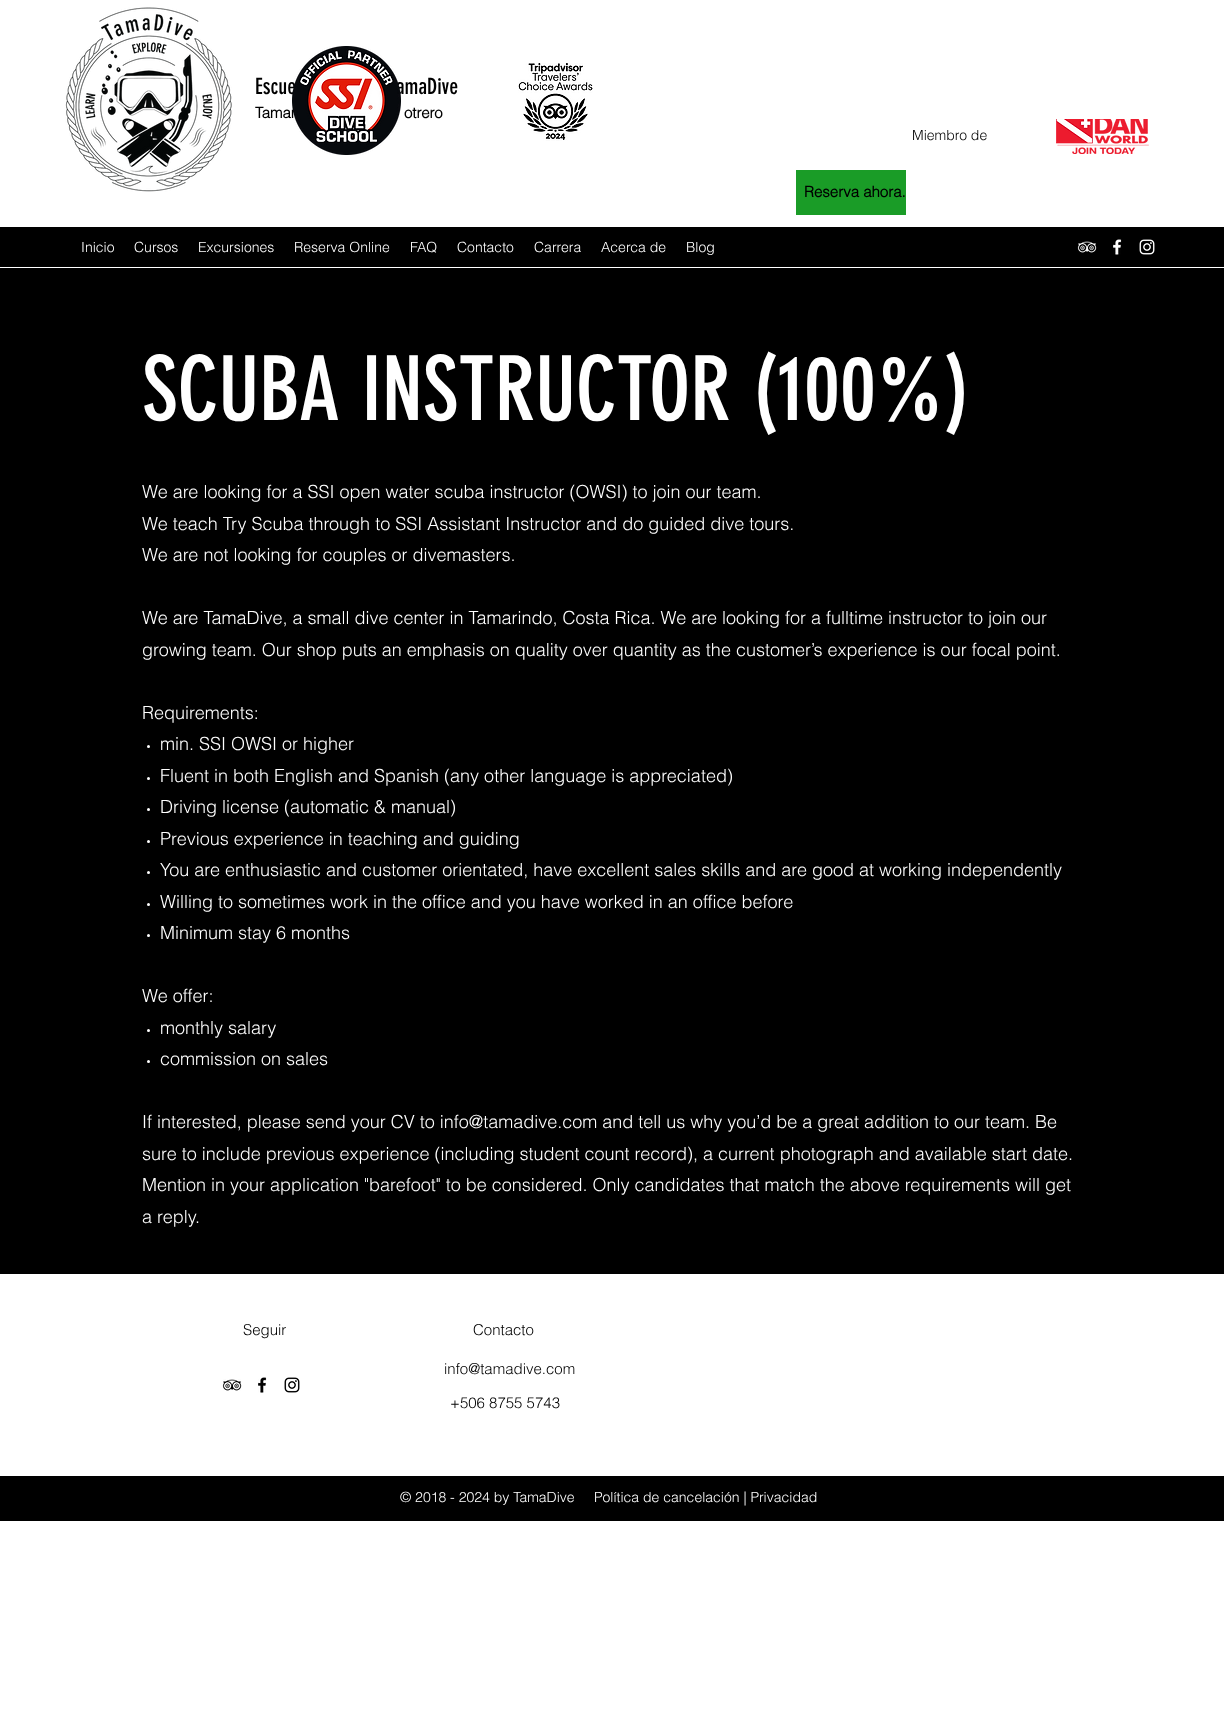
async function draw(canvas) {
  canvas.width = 1224;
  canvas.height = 1729;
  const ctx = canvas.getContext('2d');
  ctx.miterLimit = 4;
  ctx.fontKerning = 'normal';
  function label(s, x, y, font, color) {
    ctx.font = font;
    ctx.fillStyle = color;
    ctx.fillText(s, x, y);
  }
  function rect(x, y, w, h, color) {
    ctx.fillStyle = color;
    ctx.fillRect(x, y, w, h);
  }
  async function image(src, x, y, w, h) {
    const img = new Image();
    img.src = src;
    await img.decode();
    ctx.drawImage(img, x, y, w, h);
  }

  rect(0, 0, 1224, 1729, '#fff');
  await image('assets/img1.png', 65, 7, 167, 185);
  label('Escue', 255, 94, '22px "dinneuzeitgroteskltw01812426"', '#000');
  label('amaDive', 396, 94, '22px "dinneuzeitgroteskltw01812426"', '#000');
  label('Tamar', 255, 118, 'bold 15px helvetica', '#000');
  label('otrero', 404, 118, 'bold 15px helvetica', '#000');
  await image('assets/img2.png', 292, 46, 109, 109);
  await image('assets/img3.png', 518, 63, 75, 78);
  label('Miembro de', 912, 140, '300 14px helvetica', '#000');
  await image('assets/img4.png', 1056, 119, 93, 35);
  rect(796, 170, 110, 45, '#1a9c27');
  label('Reserva ahora.', 804, 197, 'bold 15px helvetica', '#000');
  rect(0, 227, 1224, 40, '#000');
  label('Inicio', 81, 252, '300 14px helvetica', '#fff');
  label('Cursos', 134, 252, '300 14px helvetica', '#fff');
  label('Excursiones', 198, 252, '300 14px helvetica', '#fff');
  label('Reserva Online', 294, 252, '300 14px helvetica', '#fff');
  label('FAQ', 410, 252, '300 14px helvetica', '#fff');
  label('Contacto', 457, 252, '300 14px helvetica', '#fff');
  label('Carrera', 534, 252, '300 14px helvetica', '#fff');
  label('Acerca de', 601, 252, '300 14px helvetica', '#fff');
  label('Blog', 686, 252, '300 14px helvetica', '#fff');
  await image('assets/img5.png', 1077, 241, 20, 12);
  await image('assets/img6.png', 1113, 239, 9, 16);
  await image('assets/img7.png', 1139, 239, 16, 16);
  rect(0, 268, 1224, 1006, '#000');
  label('SCUBA INSTRUCTOR (100%)', 142, 420, '88px "dinneuzeitgroteskltw01812426"', '#fff');
  label('We are looking for a SSI open water scuba instructor (OWSI) to join our team.', 142, 498, '300 18px helvetica', '#fff');
  label('We teach Try Scuba through to SSI Assistant Instructor and do guided dive tours.', 142, 530, '300 18px helvetica', '#fff');
  label('We are not looking for couples or divemasters.', 142, 561, '300 18px helvetica', '#fff');
  label('We are TamaDive, a small dive center in Tamarindo, Costa Rica. We are looking for a fulltime instructor to join our', 142, 624, '300 18px helvetica', '#fff');
  label('growing team. Our shop puts an emphasis on quality over quantity as the customer’s experience is our focal point.', 142, 656, '300 18px helvetica', '#fff');
  label('Requirements:', 142, 719, '300 18px helvetica', '#fff');
  ctx.beginPath();
  ctx.arc(148.5, 746.5, 1.5, 0, 2 * Math.PI);
  ctx.fill();
  label('min. SSI OWSI or higher', 160, 750, '300 18px helvetica', '#fff');
  ctx.beginPath();
  ctx.arc(148.5, 778.5, 1.5, 0, 2 * Math.PI);
  ctx.fill();
  label('Fluent in both English and Spanish (any other language is appreciated)', 160, 782, '300 18px helvetica', '#fff');
  ctx.beginPath();
  ctx.arc(148.5, 809.5, 1.5, 0, 2 * Math.PI);
  ctx.fill();
  label('Driving license (automatic & manual)', 160, 813, '300 18px helvetica', '#fff');
  ctx.beginPath();
  ctx.arc(148.5, 841.5, 1.5, 0, 2 * Math.PI);
  ctx.fill();
  label('Previous experience in teaching and guiding', 160, 845, '300 18px helvetica', '#fff');
  ctx.beginPath();
  ctx.arc(148.5, 872.5, 1.5, 0, 2 * Math.PI);
  ctx.fill();
  label('You are enthusiastic and customer orientated, have excellent sales skills and are good at working independently', 160, 876, '300 18px helvetica', '#fff');
  ctx.beginPath();
  ctx.arc(148.5, 904.5, 1.5, 0, 2 * Math.PI);
  ctx.fill();
  label('Willing to sometimes work in the office and you have worked in an office before', 160, 908, '300 18px helvetica', '#fff');
  ctx.beginPath();
  ctx.arc(148.5, 935.5, 1.5, 0, 2 * Math.PI);
  ctx.fill();
  label('Minimum stay 6 months', 160, 939, '300 18px helvetica', '#fff');
  label('We offer:', 142, 1002, '300 18px helvetica', '#fff');
  ctx.beginPath();
  ctx.arc(148.5, 1030.5, 1.5, 0, 2 * Math.PI);
  ctx.fill();
  label('monthly salary', 160, 1034, '300 18px helvetica', '#fff');
  ctx.beginPath();
  ctx.arc(148.5, 1061.5, 1.5, 0, 2 * Math.PI);
  ctx.fill();
  label('commission on sales', 160, 1065, '300 18px helvetica', '#fff');
  label('If interested, please send your CV to info@tamadive.com and tell us why you’d be a great addition to our team. Be', 142, 1128, '300 18px helvetica', '#fff');
  label('sure to include previous experience (including student count record), a current photograph and available start date.', 142, 1160, '300 18px helvetica', '#fff');
  label('Mention in your application "barefoot" to be considered. Only candidates that match the above requirements will get', 142, 1191, '300 18px helvetica', '#fff');
  label('a reply.', 142, 1223, '300 18px helvetica', '#fff');
  label('Seguir', 243, 1335, '300 15px helvetica', '#000');
  label('Contacto', 473, 1335, '300 15px helvetica', '#000');
  label('info@tamadive.com', 444, 1374, '300 15px helvetica', '#000');
  await image('assets/img8.png', 222, 1379, 20, 12);
  await image('assets/img9.png', 258, 1377, 9, 16);
  await image('assets/img10.png', 284, 1377, 16, 16);
  label('+506 8755 5743', 450, 1408, '300 15px helvetica', '#000');
  rect(0, 1476, 1224, 45, '#000');
  label('© 2018 - 2024 by TamaDive', 400, 1502, '300 14px helvetica', '#fff');
  label('Política de cancelación | Privacidad', 594, 1502, '300 14px helvetica', '#fff');
}

draw(document.querySelector('canvas'));
